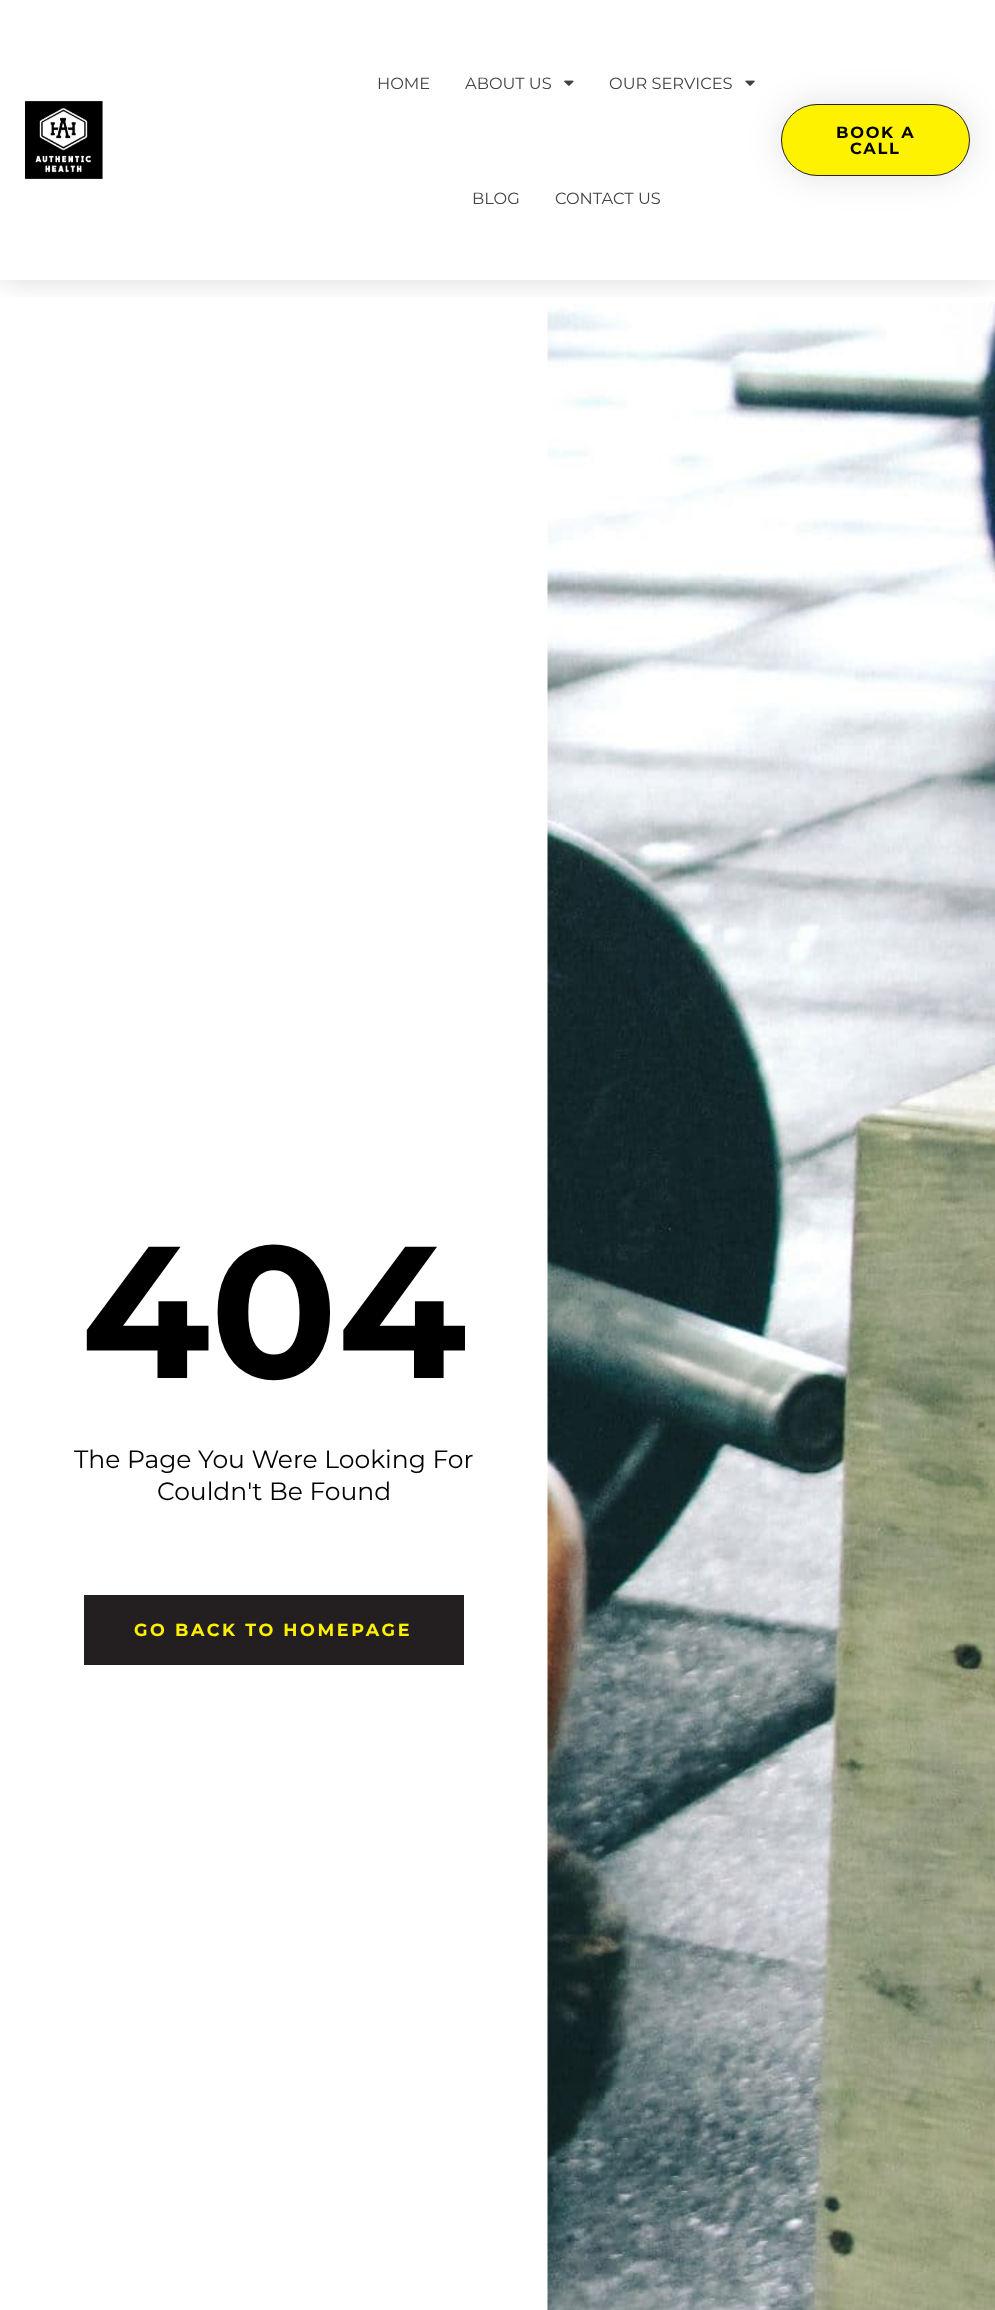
async function draw(canvas) {
  canvas.width = 995;
  canvas.height = 2310;
  const ctx = canvas.getContext('2d');
  ctx.miterLimit = 4;
  ctx.fontKerning = 'normal';
  function label(s, x, y, font, color) {
    ctx.font = font;
    ctx.fillStyle = color;
    ctx.fillText(s, x, y);
  }
  function rect(x, y, w, h, color) {
    ctx.fillStyle = color;
    ctx.fillRect(x, y, w, h);
  }
  async function image(src, x, y, w, h) {
    const img = new Image();
    img.src = src;
    await img.decode();
    ctx.drawImage(img, x, y, w, h);
  }

  rect(0, 0, 995, 2310, '#fff');
  await image('assets/img4.png', 547, 302, 448, 2008);
  ctx.save();
  ctx.beginPath();
  ctx.rect(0, 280, 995, 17);
  ctx.clip();
  ctx.fillStyle = '#00000026';
  ctx.filter = 'blur(15px)';
  ctx.beginPath();
  ctx.rect(0, 0, 995, 280);
  ctx.fill();
  ctx.filter = 'none';
  ctx.restore();
  await image('assets/img1.png', 25, 101, 78, 78);
  label('HOME', 377, 89, '16.25px Montserrat', '#424242');
  label('ABOUT US', 465, 89, '16.25px Montserrat', '#424242');
  await image('assets/img2.png', 564, 80, 10, 6);
  ctx.fillStyle = '#0000001f';
  ctx.filter = 'blur(17px)';
  ctx.beginPath();
  ctx.roundRect(781, 104, 189, 72, 36);
  ctx.fill();
  ctx.filter = 'none';
  label('OUR SERVICES', 609, 89, '16.25px Montserrat', '#424242');
  await image('assets/img3.png', 745, 80, 10, 6);
  label('BLOG', 472, 204, '16.25px Montserrat', '#424242');
  label('CONTACT US', 555, 204, '16.25px Montserrat', '#424242');
  ctx.fillStyle = '#fef200';
  ctx.beginPath();
  ctx.roundRect(781.5, 104.5, 188, 71, 35.5);
  ctx.fill();
  ctx.strokeStyle = '#231f20';
  ctx.stroke();
  ctx.letterSpacing = '1.75px';
  label('BOOK A', 836, 138, 'bold 16.25px Montserrat', '#000');
  label('CALL', 850, 154, 'bold 16.25px Montserrat', '#000');
  ctx.letterSpacing = '0px';
  label('404', 81, 1378, 'bold 187.5px Montserrat', '#000');
  label('The Page You Were Looking For', 74, 1468, '25px Montserrat', '#000');
  label('Couldn\'t Be Found', 157, 1500, '25px Montserrat', '#000');
  rect(84, 1595, 380, 70, '#231f20');
  ctx.letterSpacing = '2.6px';
  label('GO BACK TO HOMEPAGE', 134, 1636, 'bold 17.5px Montserrat', '#fdf100');
}

draw(document.querySelector('canvas'));
